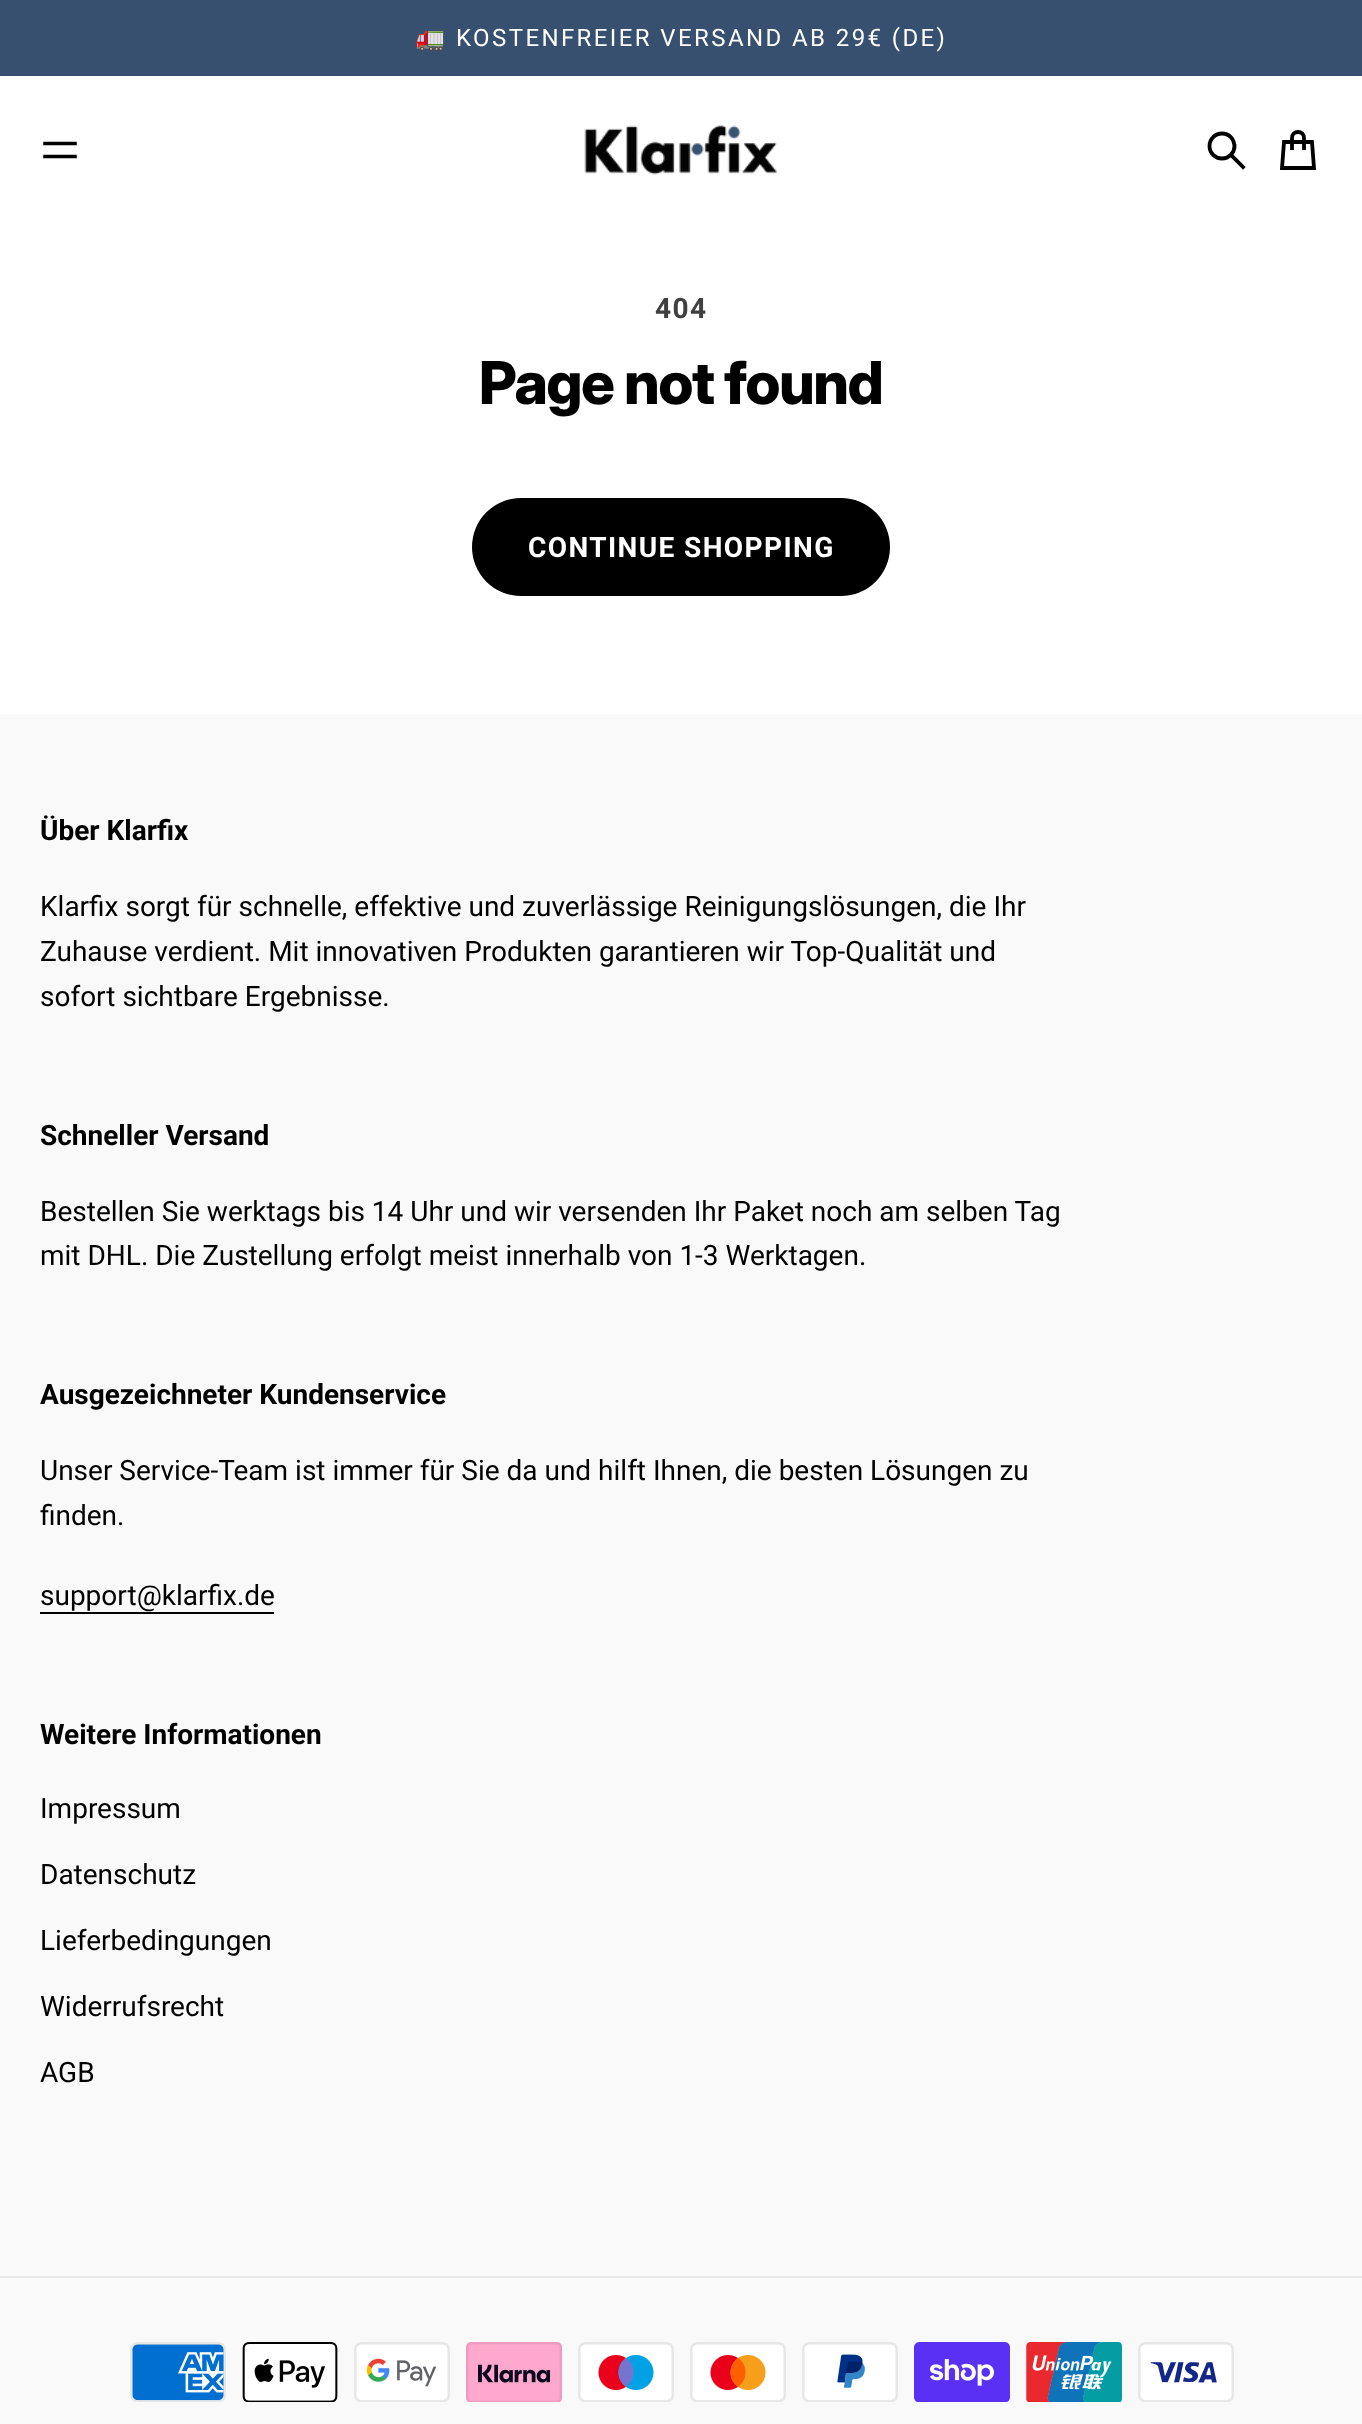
async function draw(canvas) {
  canvas.width = 1362;
  canvas.height = 2424;
  const ctx = canvas.getContext('2d');
  ctx.miterLimit = 4;
  ctx.fontKerning = 'normal';
  function label(s, x, y, font, color) {
    ctx.font = font;
    ctx.fillStyle = color;
    ctx.fillText(s, x, y);
  }
  function rect(x, y, w, h, color) {
    ctx.fillStyle = color;
    ctx.fillRect(x, y, w, h);
  }
  function roundedRect(x, y, w, h, r, color) {
    ctx.fillStyle = color;
    ctx.beginPath();
    ctx.roundRect(x, y, w, h, r);
    ctx.fill();
  }
  async function image(src, x, y, w, h) {
    const img = new Image();
    img.src = src;
    await img.decode();
    ctx.drawImage(img, x, y, w, h);
  }
  let path;

  rect(0, 0, 1362, 2424, '#fff');
  rect(0, 0, 1362, 76, '#375070');
  ctx.letterSpacing = '2.4px';
  label('🚛', 415, 46, '24px Noto Color Emoji', '#fff');
  label('KOSTENFREIER VERSAND AB 29€ (DE)', 456, 46, '24px Roboto', '#fff');
  path = new Path2D('M75 156.5H45M75 143.5H45');
  ctx.strokeStyle = '#000';
  ctx.lineWidth = 3.5;
  ctx.lineCap = 'square';
  ctx.stroke(path);
  await image('assets/img1.png', 584, 125, 194, 50);
  path = new Path2D('M1243 167L1231 155');
  ctx.lineWidth = 3.8;
  ctx.stroke(path);
  ctx.beginPath();
  ctx.arc(1222, 146, 12.5, 0, 2 * Math.PI);
  ctx.stroke();
  path = new Path2D('M1292 148V138C1292 134.5 1294.5 132 1298 132C1301.5 132 1304 134.5 1304 138V148M1282 168H1314L1312 142H1284Z');
  ctx.stroke(path);
  ctx.letterSpacing = '1.4px';
  label('404', 655, 318, 'bold 28px Roboto', '#404040');
  ctx.letterSpacing = '-1.5px';
  label('Page not found', 479, 404, '800 59px Inter', '#000');
  roundedRect(472, 498, 418, 98, 49, '#000');
  ctx.letterSpacing = '1.4px';
  label('CONTINUE SHOPPING', 528, 557, 'bold 28px Roboto', '#fff');
  rect(0, 714, 1362, 1710, '#f9f9f9');
  ctx.letterSpacing = '0px';
  label('Über Klarfix', 40, 840, 'bold 28px Roboto', '#000');
  label('Klarfix sorgt für schnelle, effektive und zuverlässige Reinigungslösungen, die Ihr', 40, 916, '28px Roboto', '#000');
  label('Zuhause verdient. Mit innovativen Produkten garantieren wir Top-Qualität und', 40, 961, '28px Roboto', '#000');
  label('sofort sichtbare Ergebnisse.', 40, 1006, '28px Roboto', '#000');
  label('Schneller Versand', 40, 1145, 'bold 28px Roboto', '#000');
  label('Bestellen Sie werktags bis 14 Uhr und wir versenden Ihr Paket noch am selben Tag', 40, 1221, '28px Roboto', '#000');
  label('mit DHL. Die Zustellung erfolgt meist innerhalb von 1-3 Werktagen.', 40, 1265, '28px Roboto', '#000');
  label('Ausgezeichneter Kundenservice', 40, 1404, 'bold 28px Roboto', '#000');
  label('Unser Service-Team ist immer für Sie da und hilft Ihnen, die besten Lösungen zu', 40, 1480, '28px Roboto', '#000');
  label('finden.', 40, 1525, '28px Roboto', '#000');
  label('support@klarfix.de', 40, 1605, '28px Roboto', '#000');
  rect(40, 1612, 234, 2, '#000');
  label('Weitere Informationen', 40, 1744, 'bold 28px Roboto', '#000');
  label('Impressum', 40, 1818, '28px Roboto', '#000');
  label('Datenschutz', 40, 1884, '28px Roboto', '#000');
  label('Lieferbedingungen', 40, 1950, '28px Roboto', '#000');
  label('Widerrufsrecht', 40, 2016, '28px Roboto', '#000');
  label('AGB', 40, 2082, '28px Roboto', '#000');
  rect(0, 2276, 1362, 2, '#eaeaea');
  await image('assets/img2.png', 130, 2342, 96, 60);
  await image('assets/img3.png', 242, 2342, 96, 60);
  await image('assets/img4.png', 354, 2342, 96, 60);
  await image('assets/img5.png', 466, 2342, 96, 60);
  await image('assets/img6.png', 578, 2342, 96, 60);
  await image('assets/img7.png', 690, 2342, 96, 60);
  await image('assets/img8.png', 802, 2342, 96, 60);
  await image('assets/img9.png', 914, 2342, 96, 60);
  await image('assets/img10.png', 1026, 2342, 96, 60);
  await image('assets/img11.png', 1138, 2342, 96, 60);
}

draw(document.querySelector('canvas'));
